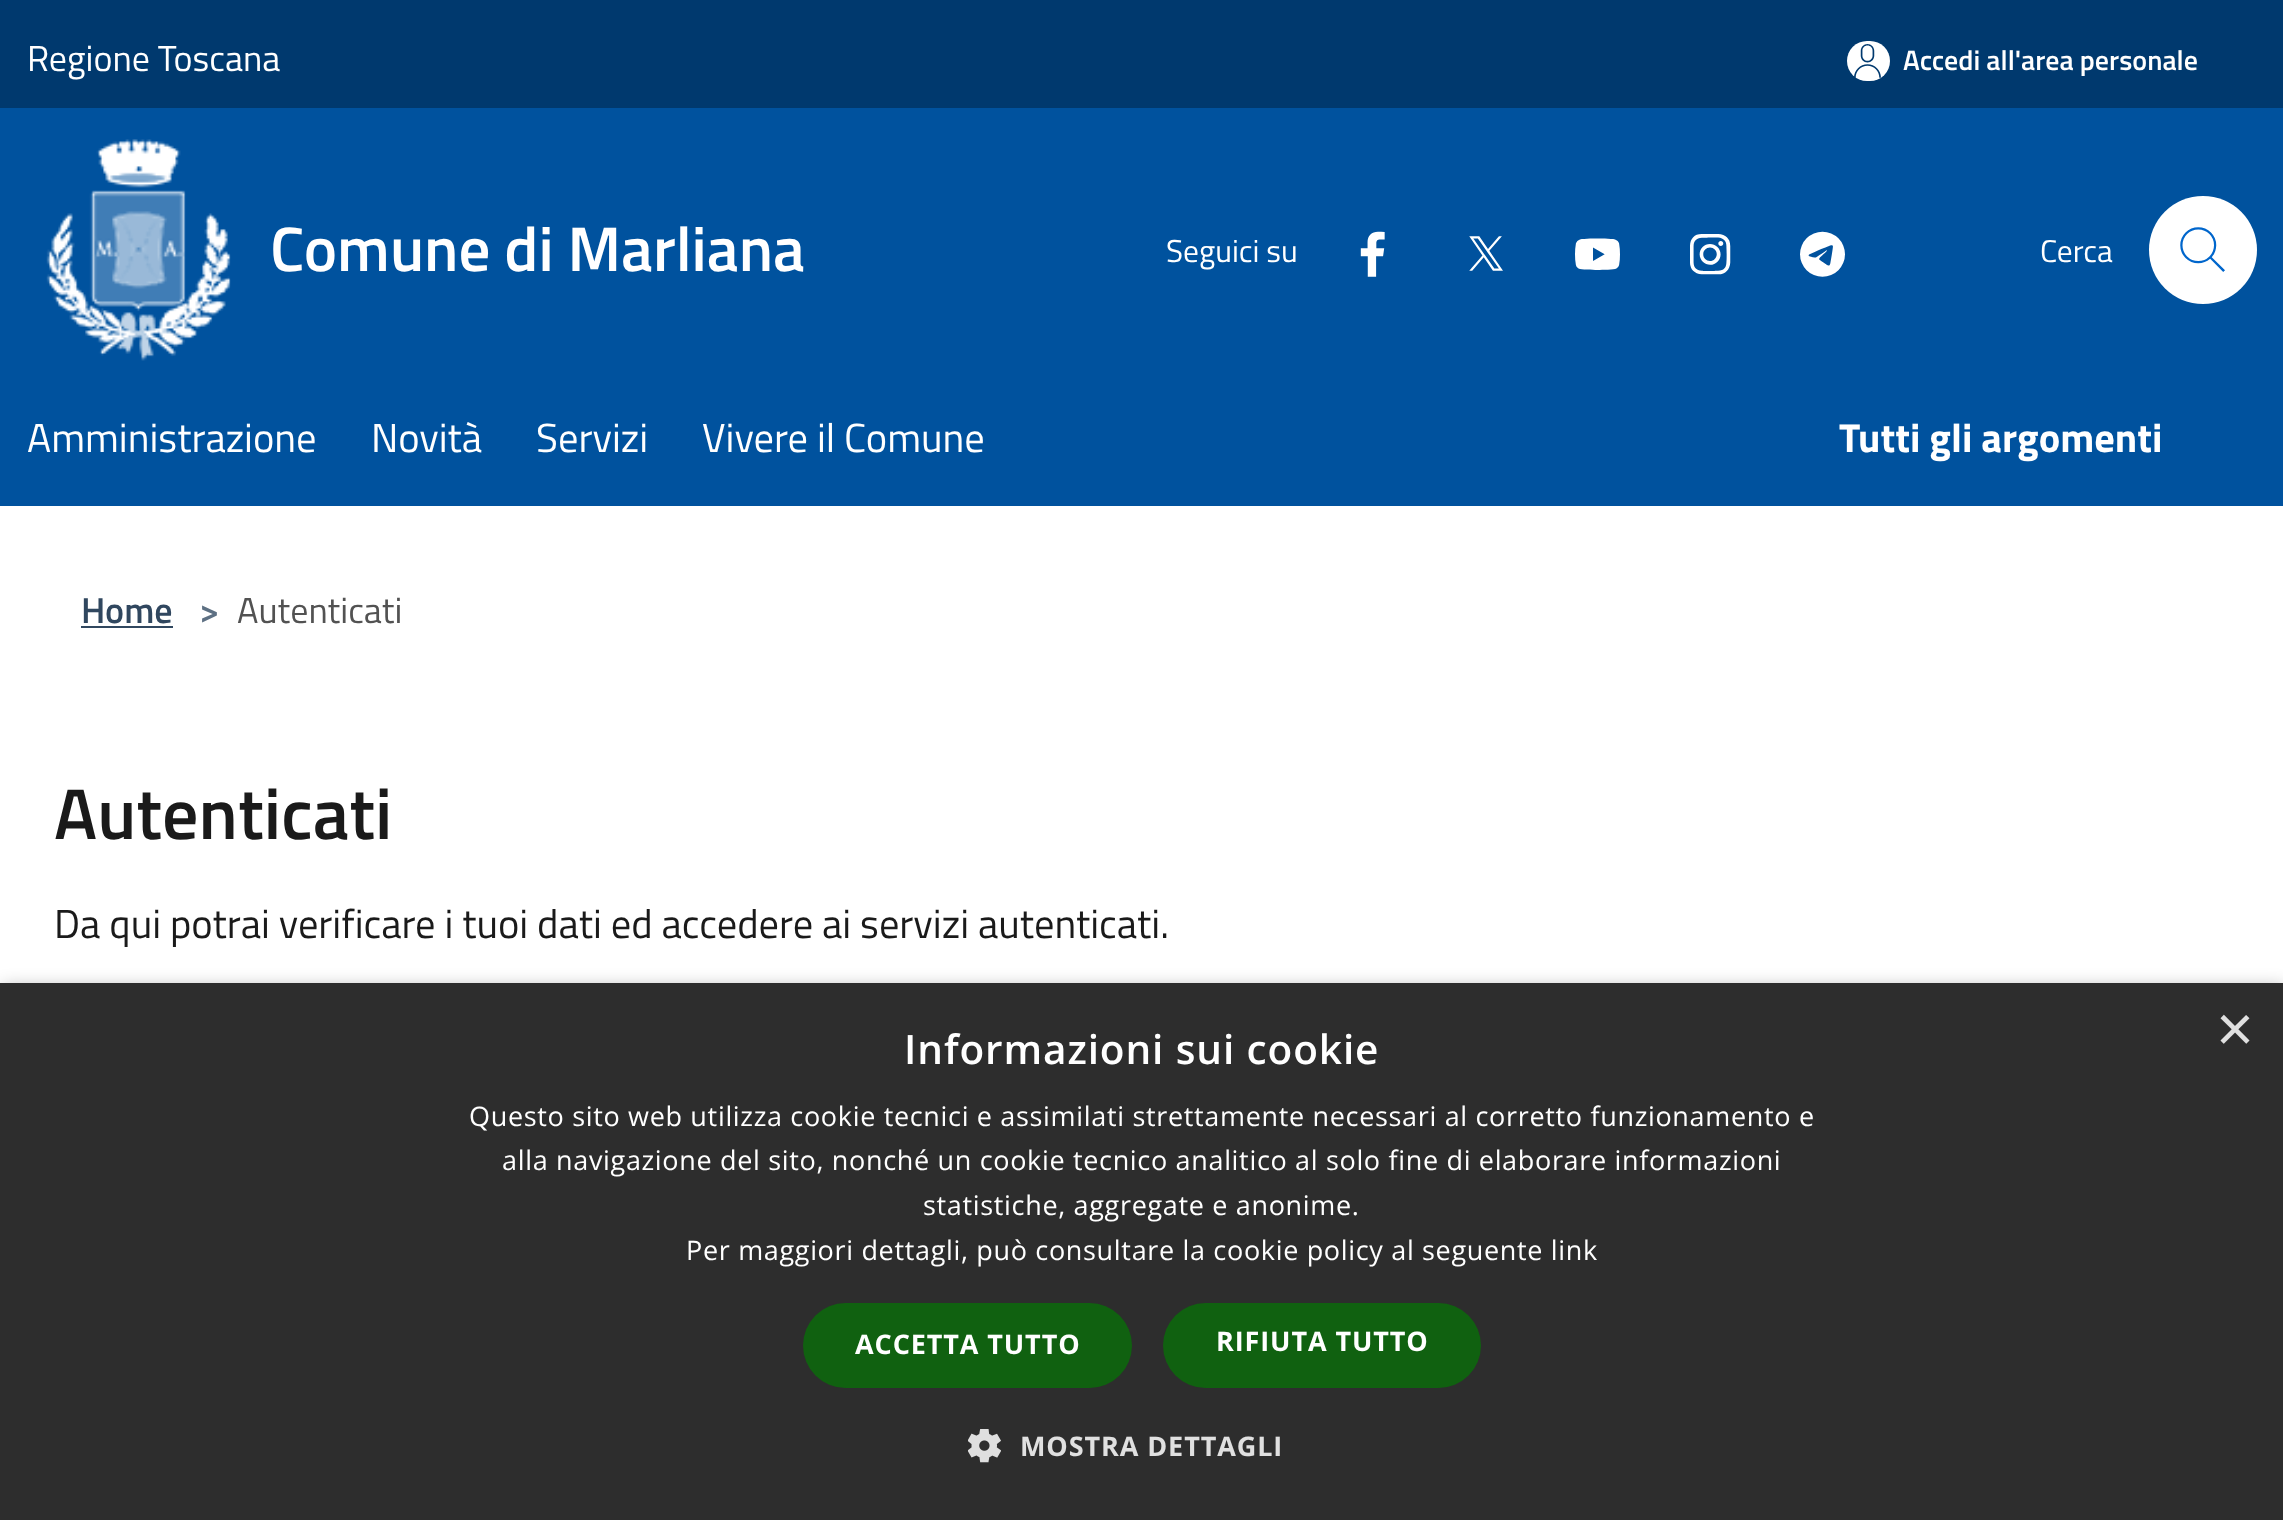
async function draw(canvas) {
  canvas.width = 2283;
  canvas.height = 1520;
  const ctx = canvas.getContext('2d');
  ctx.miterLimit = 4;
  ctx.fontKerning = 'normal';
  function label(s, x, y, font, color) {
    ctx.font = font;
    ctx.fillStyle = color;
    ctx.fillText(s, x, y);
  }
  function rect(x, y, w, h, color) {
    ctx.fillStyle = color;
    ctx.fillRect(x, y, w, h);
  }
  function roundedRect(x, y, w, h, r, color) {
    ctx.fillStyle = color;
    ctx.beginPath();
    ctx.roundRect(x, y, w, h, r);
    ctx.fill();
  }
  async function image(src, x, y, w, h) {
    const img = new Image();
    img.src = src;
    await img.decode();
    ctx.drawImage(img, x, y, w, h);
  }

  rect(0, 0, 2283, 1520, '#fff');
  rect(0, 0, 2283, 108, '#00396e');
  label('Regione Toscana', 27, 71, '36px Titillium Web', '#fff');
  roundedRect(1847, 41, 43, 40, 20, '#fff');
  await image('assets/img1.png', 1854, 44, 27, 34);
  label('Accedi all\'area personale', 1903, 70, '600 28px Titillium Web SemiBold', '#fff');
  rect(0, 108, 2283, 398, '#00529e');
  await image('assets/img2.png', 46, 139, 185, 222);
  label('Comune di Marliana', 270, 271, '600 63px Titillium Web SemiBold', '#fff');
  label('Seguici su', 1166, 262, '31.5px Titillium Web', '#fff');
  await image('assets/img3.png', 1360, 231, 25, 46);
  await image('assets/img4.png', 1469, 236, 34, 35);
  await image('assets/img5.png', 1575, 238, 45, 32);
  await image('assets/img6.png', 1690, 234, 41, 41);
  await image('assets/img7.png', 1800, 231, 45, 46);
  label('Cerca', 2040, 262, '31.5px Titillium Web', '#fff');
  ctx.beginPath();
  ctx.arc(2203, 250, 54, 0, 2 * Math.PI);
  ctx.fill();
  await image('assets/img8.png', 2180, 227, 45, 45);
  label('Amministrazione', 27, 452, '40.5px Titillium Web', '#fff');
  label('Novità', 371, 452, '40.5px Titillium Web', '#fff');
  label('Servizi', 536, 452, '40.5px Titillium Web', '#fff');
  label('Vivere il Comune', 702, 452, '40.5px Titillium Web', '#fff');
  label('Tutti gli argomenti', 1839, 452, 'bold 40.5px Titillium Web', '#fff');
  label('Home', 81, 623, '600 36px Titillium Web SemiBold', '#30475f');
  rect(81, 626, 92, 2, '#30475f');
  label('>', 199, 623, '600 36px Titillium Web SemiBold', '#5d7083');
  label('Autenticati', 237, 623, '36px Titillium Web', '#525252');
  label('Autenticati', 54, 839, '600 72px Titillium Web SemiBold', '#1a1a1a');
  label('Da qui potrai verificare i tuoi dati ed accedere ai servizi autenticati.', 54, 938, '40.5px Titillium Web', '#1a1a1a');
  ctx.fillStyle = '#00000059';
  ctx.filter = 'blur(9px)';
  ctx.beginPath();
  ctx.rect(2, 988, 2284, 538);
  ctx.fill();
  ctx.filter = 'none';
  rect(0, 983, 2283, 537, '#2d2d2d');
  label('×', 2216, 1051, '65px Liberation Sans', '#e0e0e0');
  ctx.letterSpacing = '0.9px';
  label('Informazioni sui cookie', 904, 1064, '600 40.5px Open Sans', '#fff');
  ctx.letterSpacing = '0.67px';
  label('Questo sito web utilizza cookie tecnici e assimilati strettamente necessari al corretto funzionamento e', 469, 1126, '27px Open Sans', '#fff');
  label('alla navigazione del sito, nonché un cookie tecnico analitico al solo fine di elaborare informazioni', 502, 1170, '27px Open Sans', '#fff');
  label('statistiche, aggregate e anonime.', 923, 1215, '27px Open Sans', '#fff');
  label('Per maggiori dettagli, può consultare la cookie policy al seguente link', 686, 1260, '27px Open Sans', '#fff');
  roundedRect(803, 1303, 329, 85, 42.5, '#106110');
  ctx.letterSpacing = '0.9px';
  label('ACCETTA TUTTO', 855, 1354, 'bold 27px Open Sans', '#fff');
  roundedRect(1163, 1303, 318, 85, 42.5, '#106110');
  label('RIFIUTA TUTTO', 1216, 1351, 'bold 27px Open Sans', '#fff');
  await image('assets/img9.png', 968, 1429, 33, 34);
  label('MOSTRA DETTAGLI', 1020, 1456, 'bold 27px Open Sans', '#e0e0e0');
}

draw(document.querySelector('canvas'));
